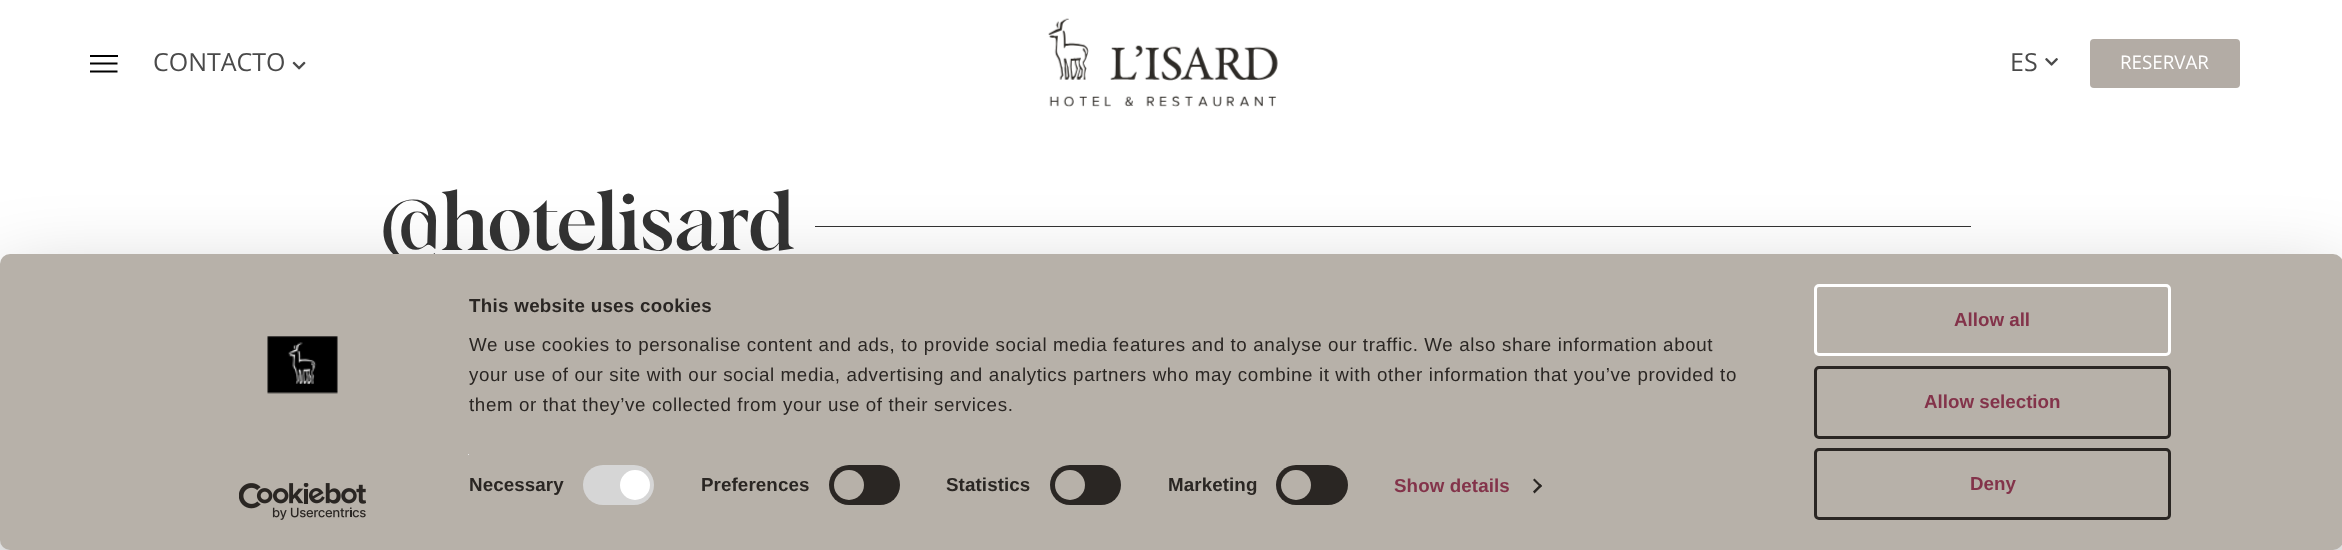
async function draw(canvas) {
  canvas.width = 2342;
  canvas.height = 550;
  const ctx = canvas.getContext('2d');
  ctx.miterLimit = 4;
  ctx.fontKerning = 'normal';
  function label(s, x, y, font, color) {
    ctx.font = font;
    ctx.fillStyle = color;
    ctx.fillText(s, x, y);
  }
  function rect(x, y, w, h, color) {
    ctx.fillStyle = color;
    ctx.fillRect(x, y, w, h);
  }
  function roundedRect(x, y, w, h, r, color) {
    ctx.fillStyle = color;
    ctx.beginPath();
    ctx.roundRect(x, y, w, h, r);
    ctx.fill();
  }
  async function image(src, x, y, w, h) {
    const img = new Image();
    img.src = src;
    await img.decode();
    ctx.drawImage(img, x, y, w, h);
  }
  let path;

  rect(0, 0, 2342, 550, '#fff');
  rect(90, 55, 28, 2, '#000');
  path = new Path2D('M90 63.5H117.5M90 71.5H117.5');
  ctx.strokeStyle = '#000';
  ctx.lineWidth = 2.2;
  ctx.stroke(path);
  label('CONTACTO', 153, 71, '25px Open Sans', '#4a4a4a');
  await image('assets/img1.png', 292, 61, 14, 9);
  await image('assets/img2.png', 1048, 18, 230, 89);
  label('ES', 2010, 71, '25px Open Sans', '#4a4a4a');
  await image('assets/img3.png', 2045, 58, 13, 8);
  roundedRect(2090, 39, 150, 49, 4, '#b3aca5');
  label('RESERVAR', 2120, 69, '18.75px Open Sans', '#fff');
  label('@hotelisard', 381, 250, '500 81.25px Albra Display', '#333');
  rect(815, 226, 1156, 1, '#333');
  ctx.fillStyle = '#0000004d';
  ctx.filter = 'blur(44px)';
  ctx.beginPath();
  ctx.roundRect(0, 291, 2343, 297, 10);
  ctx.fill();
  ctx.filter = 'none';
  roundedRect(0, 254, 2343, 296, 10, '#b7b1a9');
  await image('assets/img4.png', 267, 336, 71, 58);
  await image('assets/img5.png', 239, 483, 127, 37);
  ctx.letterSpacing = '0.3px';
  label('This website uses cookies', 469, 312, 'bold 18.75px Liberation Sans', '#2a2623');
  ctx.letterSpacing = '0.62px';
  label('We use cookies to personalise content and ads, to provide social media features and to analyse our traffic. We also share information about', 469, 351, '18.75px Liberation Sans', '#2a2623');
  label('your use of our site with our social media, advertising and analytics partners who may combine it with other information that you’ve provided to', 469, 381, '18.75px Liberation Sans', '#2a2623');
  label('them or that they’ve collected from your use of their services.', 469, 411, '18.75px Liberation Sans', '#2a2623');
  rect(468, 454, 1, 1, '#e5e5e5');
  ctx.letterSpacing = '0.1px';
  label('Necessary', 469, 491, 'bold 18.75px Liberation Sans', '#2a2623');
  roundedRect(583, 465, 71, 40, 20, '#d6d6d6');
  ctx.fillStyle = '#fff';
  ctx.beginPath();
  ctx.arc(635, 485, 15, 0, 2 * Math.PI);
  ctx.fill();
  label('Preferences', 701, 491, 'bold 18.75px Liberation Sans', '#2a2623');
  roundedRect(829, 465, 71, 40, 20, '#2a2623');
  ctx.fillStyle = '#b7b1a9';
  ctx.beginPath();
  ctx.arc(849, 485, 15, 0, 2 * Math.PI);
  ctx.fill();
  label('Statistics', 946, 491, 'bold 18.75px Liberation Sans', '#2a2623');
  roundedRect(1050, 465, 71, 40, 20, '#2a2623');
  ctx.fillStyle = '#b7b1a9';
  ctx.beginPath();
  ctx.arc(1070, 485, 15, 0, 2 * Math.PI);
  ctx.fill();
  label('Marketing', 1168, 491, 'bold 18.75px Liberation Sans', '#2a2623');
  roundedRect(1276, 465, 72, 40, 20, '#2a2623');
  ctx.fillStyle = '#b7b1a9';
  ctx.beginPath();
  ctx.arc(1296, 485, 15, 0, 2 * Math.PI);
  ctx.fill();
  label('Show details', 1394, 492, 'bold 18.75px Liberation Sans', '#83334a');
  ctx.fillStyle = '#2a2623';
  path = new Path2D('M1534.5 478.5L1542 486L1540.5 487.5L1533 480Z');
  ctx.fill(path);
  path = new Path2D('M1540.5 484L1542 486L1534.5 493.5L1533 491.5Z');
  ctx.fill(path);
  ctx.beginPath();
  ctx.roundRect(1815.5, 285.5, 354, 69, 3.5);
  ctx.strokeStyle = '#fff';
  ctx.lineWidth = 3;
  ctx.stroke();
  ctx.letterSpacing = '0px';
  label('Allow all', 1954, 326, 'bold 18.75px Liberation Sans', '#83334a');
  ctx.beginPath();
  ctx.roundRect(1815.5, 367.5, 354, 70, 3.5);
  ctx.strokeStyle = '#2a2623';
  ctx.stroke();
  label('Allow selection', 1924, 408, 'bold 18.75px Liberation Sans', '#83334a');
  ctx.beginPath();
  ctx.roundRect(1815.5, 449.5, 354, 69, 3.5);
  ctx.stroke();
  label('Deny', 1970, 490, 'bold 18.75px Liberation Sans', '#83334a');
}

draw(document.querySelector('canvas'));
